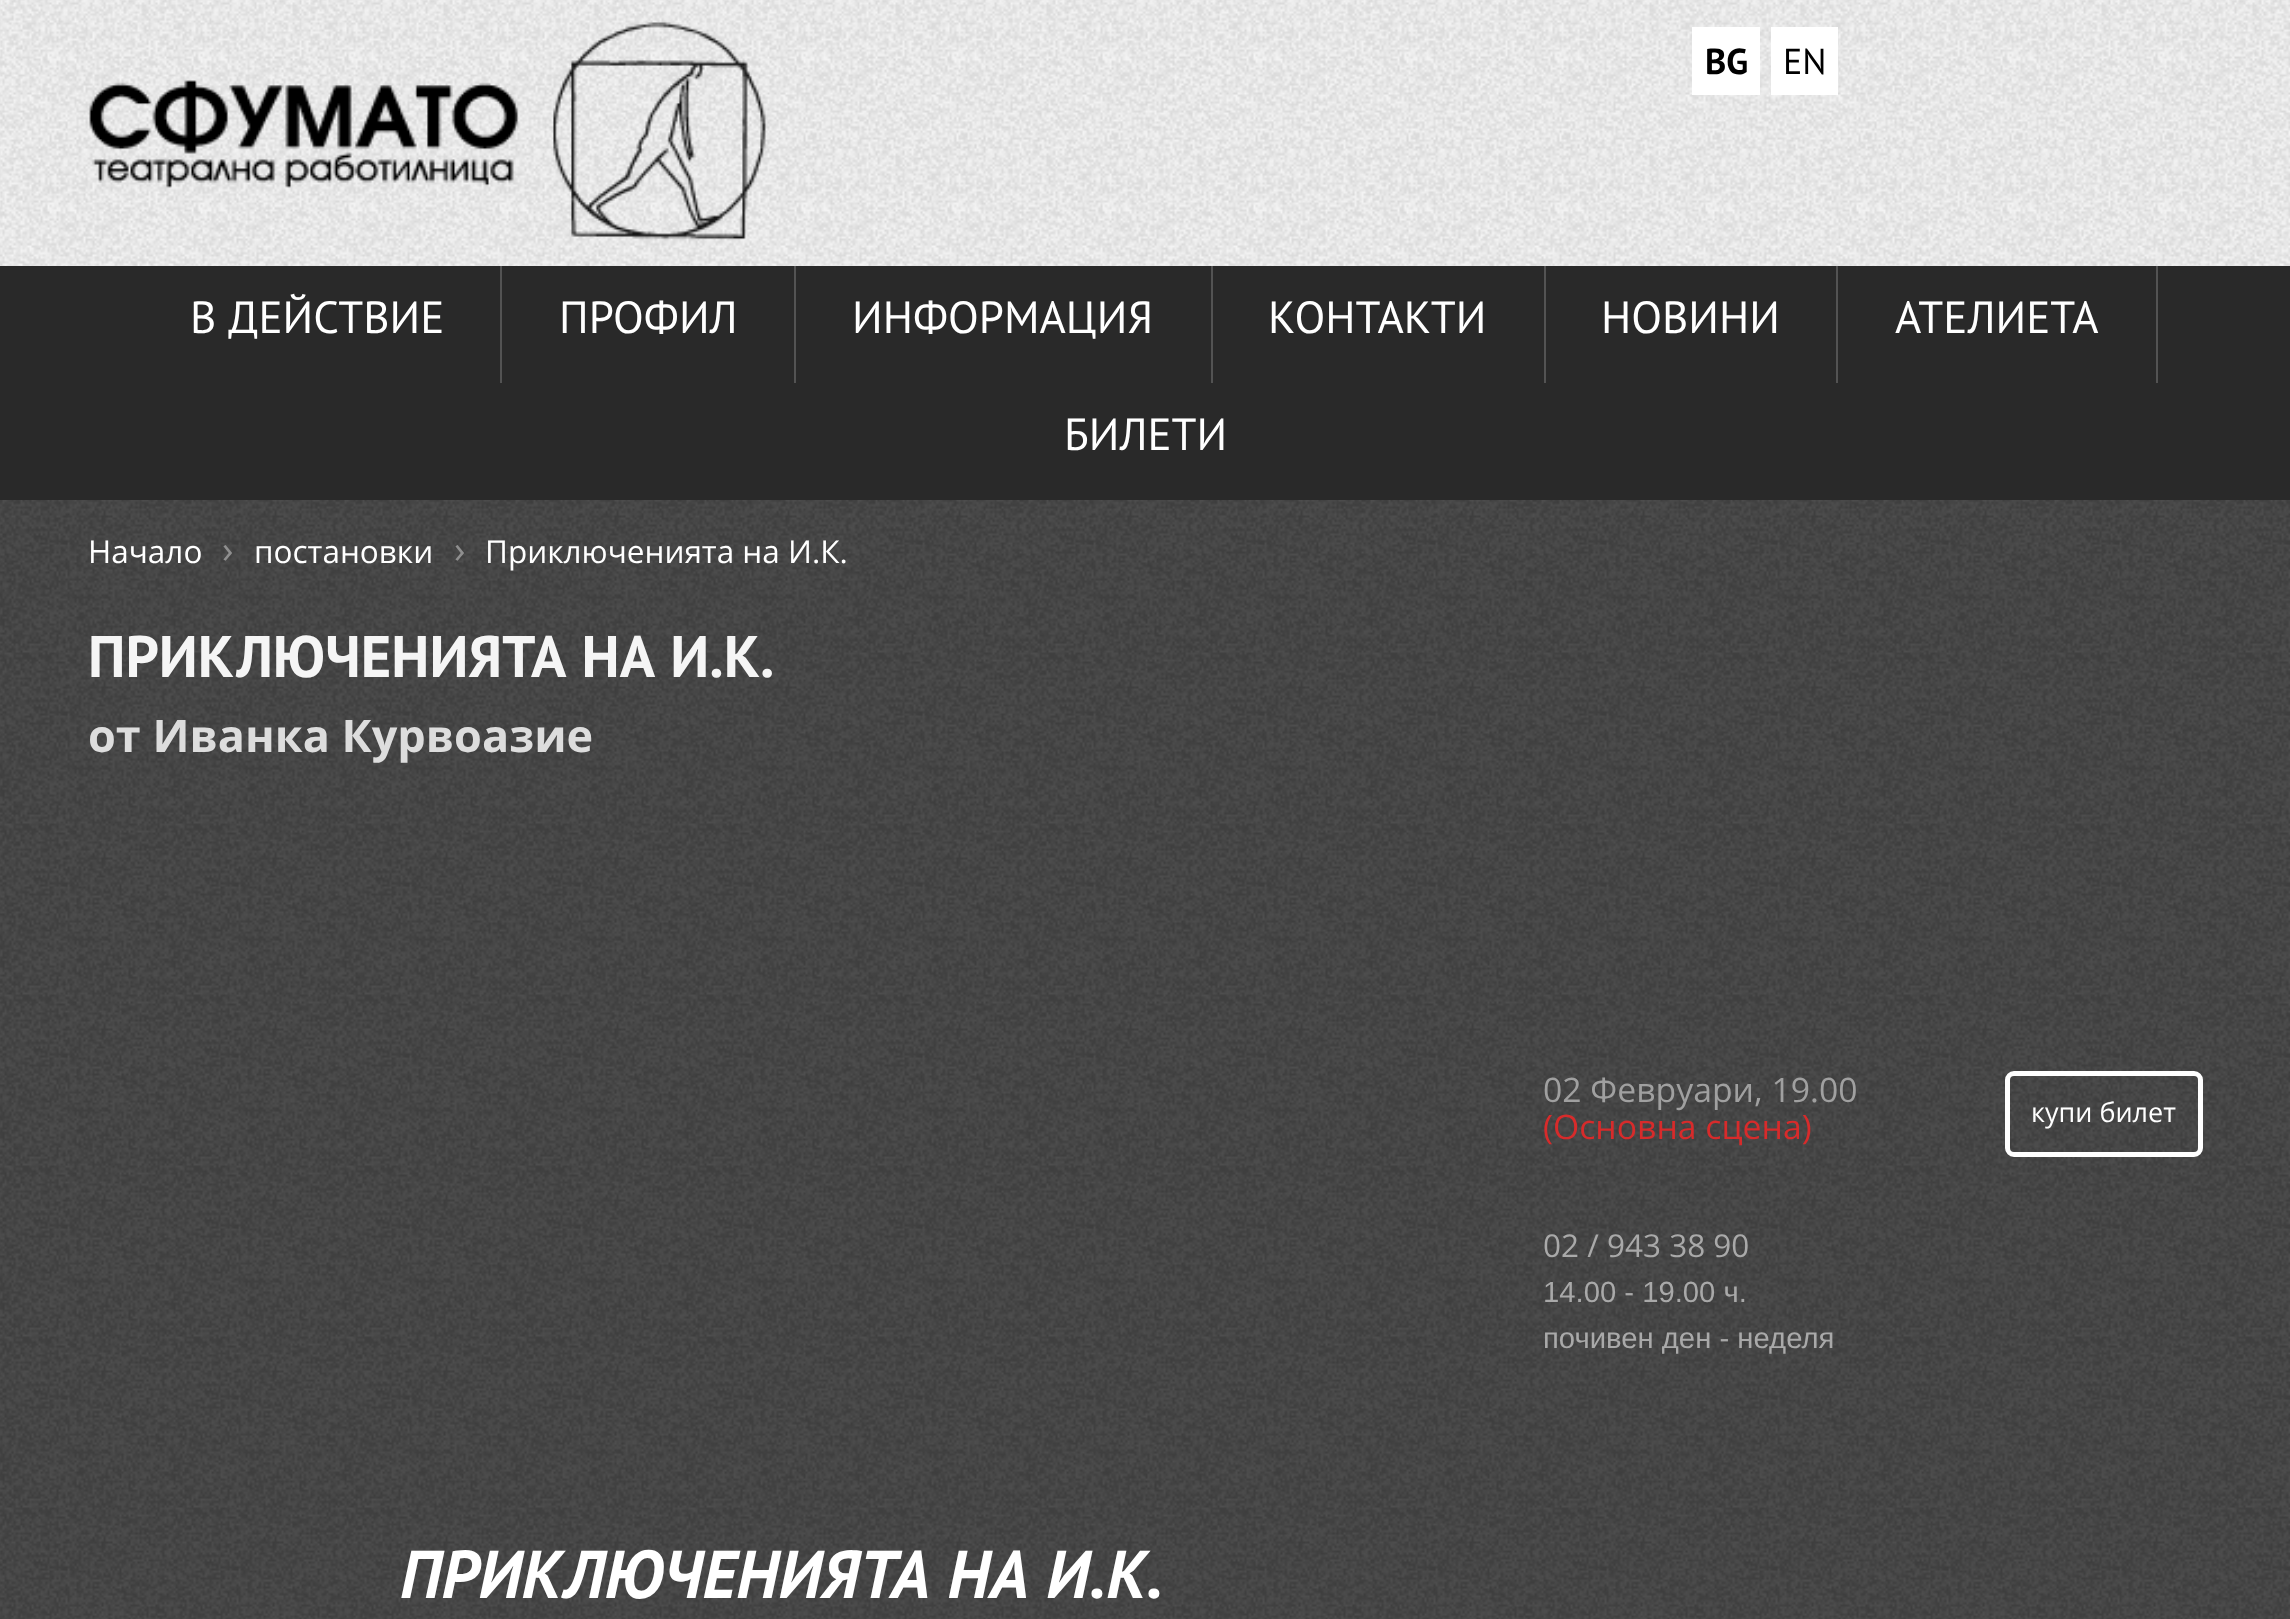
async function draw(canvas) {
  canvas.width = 2290;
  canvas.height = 1619;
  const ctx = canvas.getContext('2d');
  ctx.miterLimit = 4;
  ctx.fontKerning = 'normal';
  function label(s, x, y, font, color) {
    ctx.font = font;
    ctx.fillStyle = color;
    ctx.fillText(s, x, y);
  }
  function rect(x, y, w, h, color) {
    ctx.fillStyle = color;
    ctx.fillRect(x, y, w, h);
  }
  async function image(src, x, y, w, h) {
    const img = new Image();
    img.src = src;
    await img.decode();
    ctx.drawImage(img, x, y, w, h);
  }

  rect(0, 0, 2290, 1619, '#fff');
  await image('assets/img1.png', 0, 0, 2290, 266);
  await image('assets/img2.png', 89, 22, 677, 218);
  rect(1692, 27, 68, 68, '#fff');
  label('BG', 1705, 74, 'bold 36px PT Sans', '#000');
  rect(1771, 27, 67, 68, '#fff');
  label('EN', 1783, 74, '36px PT Sans', '#000');
  rect(0, 266, 2290, 234, '#292929');
  label('В ДЕЙСТВИЕ', 190, 333, '45px PT Sans', '#fff');
  rect(500, 266, 2, 117, '#535353');
  label('ПРОФИЛ', 559, 333, '45px PT Sans', '#fff');
  rect(794, 266, 2, 117, '#535353');
  label('ИНФОРМАЦИЯ', 852, 333, '45px PT Sans', '#fff');
  rect(1211, 266, 2, 117, '#535353');
  label('КОНТАКТИ', 1268, 333, '45px PT Sans', '#fff');
  rect(1544, 266, 2, 117, '#535353');
  label('НОВИНИ', 1601, 333, '45px PT Sans', '#fff');
  rect(1836, 266, 2, 117, '#535353');
  label('АТЕЛИЕТА', 1895, 333, '45px PT Sans', '#fff');
  rect(2156, 266, 2, 117, '#535353');
  label('БИЛЕТИ', 1064, 450, '45px PT Sans', '#fff');
  await image('assets/img3.png', 0, 500, 2290, 1119);
  label('Начало', 88, 563, '31.5px Open Sans', '#fff');
  label('›', 222, 563, '38px Open Sans', '#8f8f8f');
  label('постановки', 254, 563, '31.5px Open Sans', '#fff');
  label('›', 454, 563, '38px Open Sans', '#8f8f8f');
  label('Приключенията на И.К.', 485, 563, '31.5px Open Sans', '#fff');
  ctx.wordSpacing = '3px';
  label('ПРИКЛЮЧЕНИЯТА НА И.К.', 88, 677, 'bold 58.5px PT Sans', '#f5f5f5');
  ctx.wordSpacing = '0px';
  label('от Иванка Курвоазие', 88, 752, 'bold 45px Open Sans', '#ddd');
  label('02 Февруари, 19.00', 1543, 1102, '33.75px Open Sans', '#a0a0a0');
  label('(Основна сцена)', 1543, 1139, '33.75px Open Sans', '#d72b2b');
  ctx.beginPath();
  ctx.roundRect(2007.5, 1073.5, 193, 81, 6.5);
  ctx.strokeStyle = '#fff';
  ctx.lineWidth = 5;
  ctx.stroke();
  label('купи билет', 2031, 1122, '27px Open Sans', '#fff');
  label('02 / 943 38 90', 1543, 1257, '31.5px Open Sans', '#a9a9a9');
  label('14.00 - 19.00 ч.', 1543, 1302, '29.25px Liberation Sans', '#a9a9a9');
  label('почивен ден - неделя', 1543, 1348, '29.25px Liberation Sans', '#a9a9a9');
  ctx.wordSpacing = '3px';
  label('ПРИКЛЮЧЕНИЯТА НА И.К.', 400, 1598, 'italic bold 67.5px PT Sans', '#fff');
}

draw(document.querySelector('canvas'));
